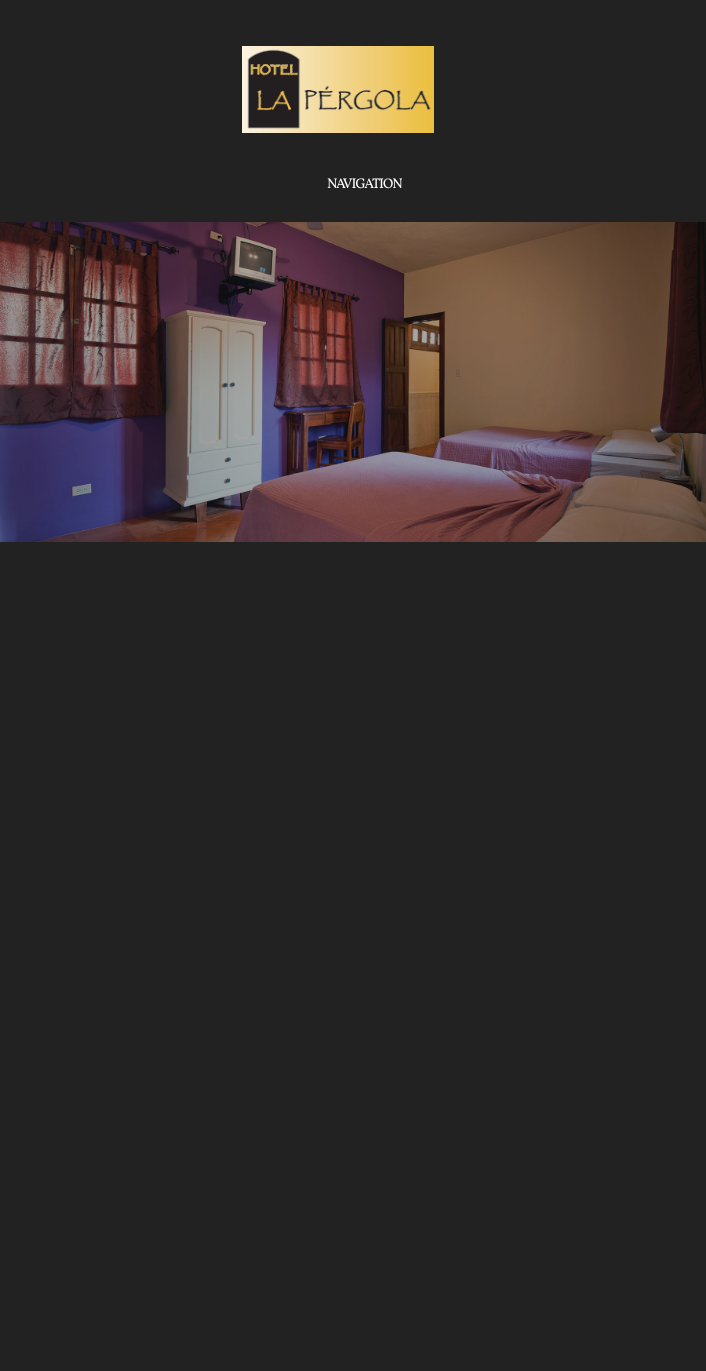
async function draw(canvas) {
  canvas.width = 706;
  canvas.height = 1371;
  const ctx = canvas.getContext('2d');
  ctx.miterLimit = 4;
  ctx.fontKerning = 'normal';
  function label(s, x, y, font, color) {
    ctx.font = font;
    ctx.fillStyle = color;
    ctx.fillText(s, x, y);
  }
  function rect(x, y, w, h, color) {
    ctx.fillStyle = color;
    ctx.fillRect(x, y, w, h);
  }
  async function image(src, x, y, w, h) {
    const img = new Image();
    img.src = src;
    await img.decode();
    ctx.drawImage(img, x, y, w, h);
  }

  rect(0, 0, 706, 1371, '#222');
  await image('assets/img1.png', 242, 46, 192, 87);
  ctx.letterSpacing = '-1px';
  label('NAVIGATION', 327, 188, '14px Vollkorn', '#fff');
  await image('assets/img2.png', 0, 222, 706, 320);
}

draw(document.querySelector('canvas'));
